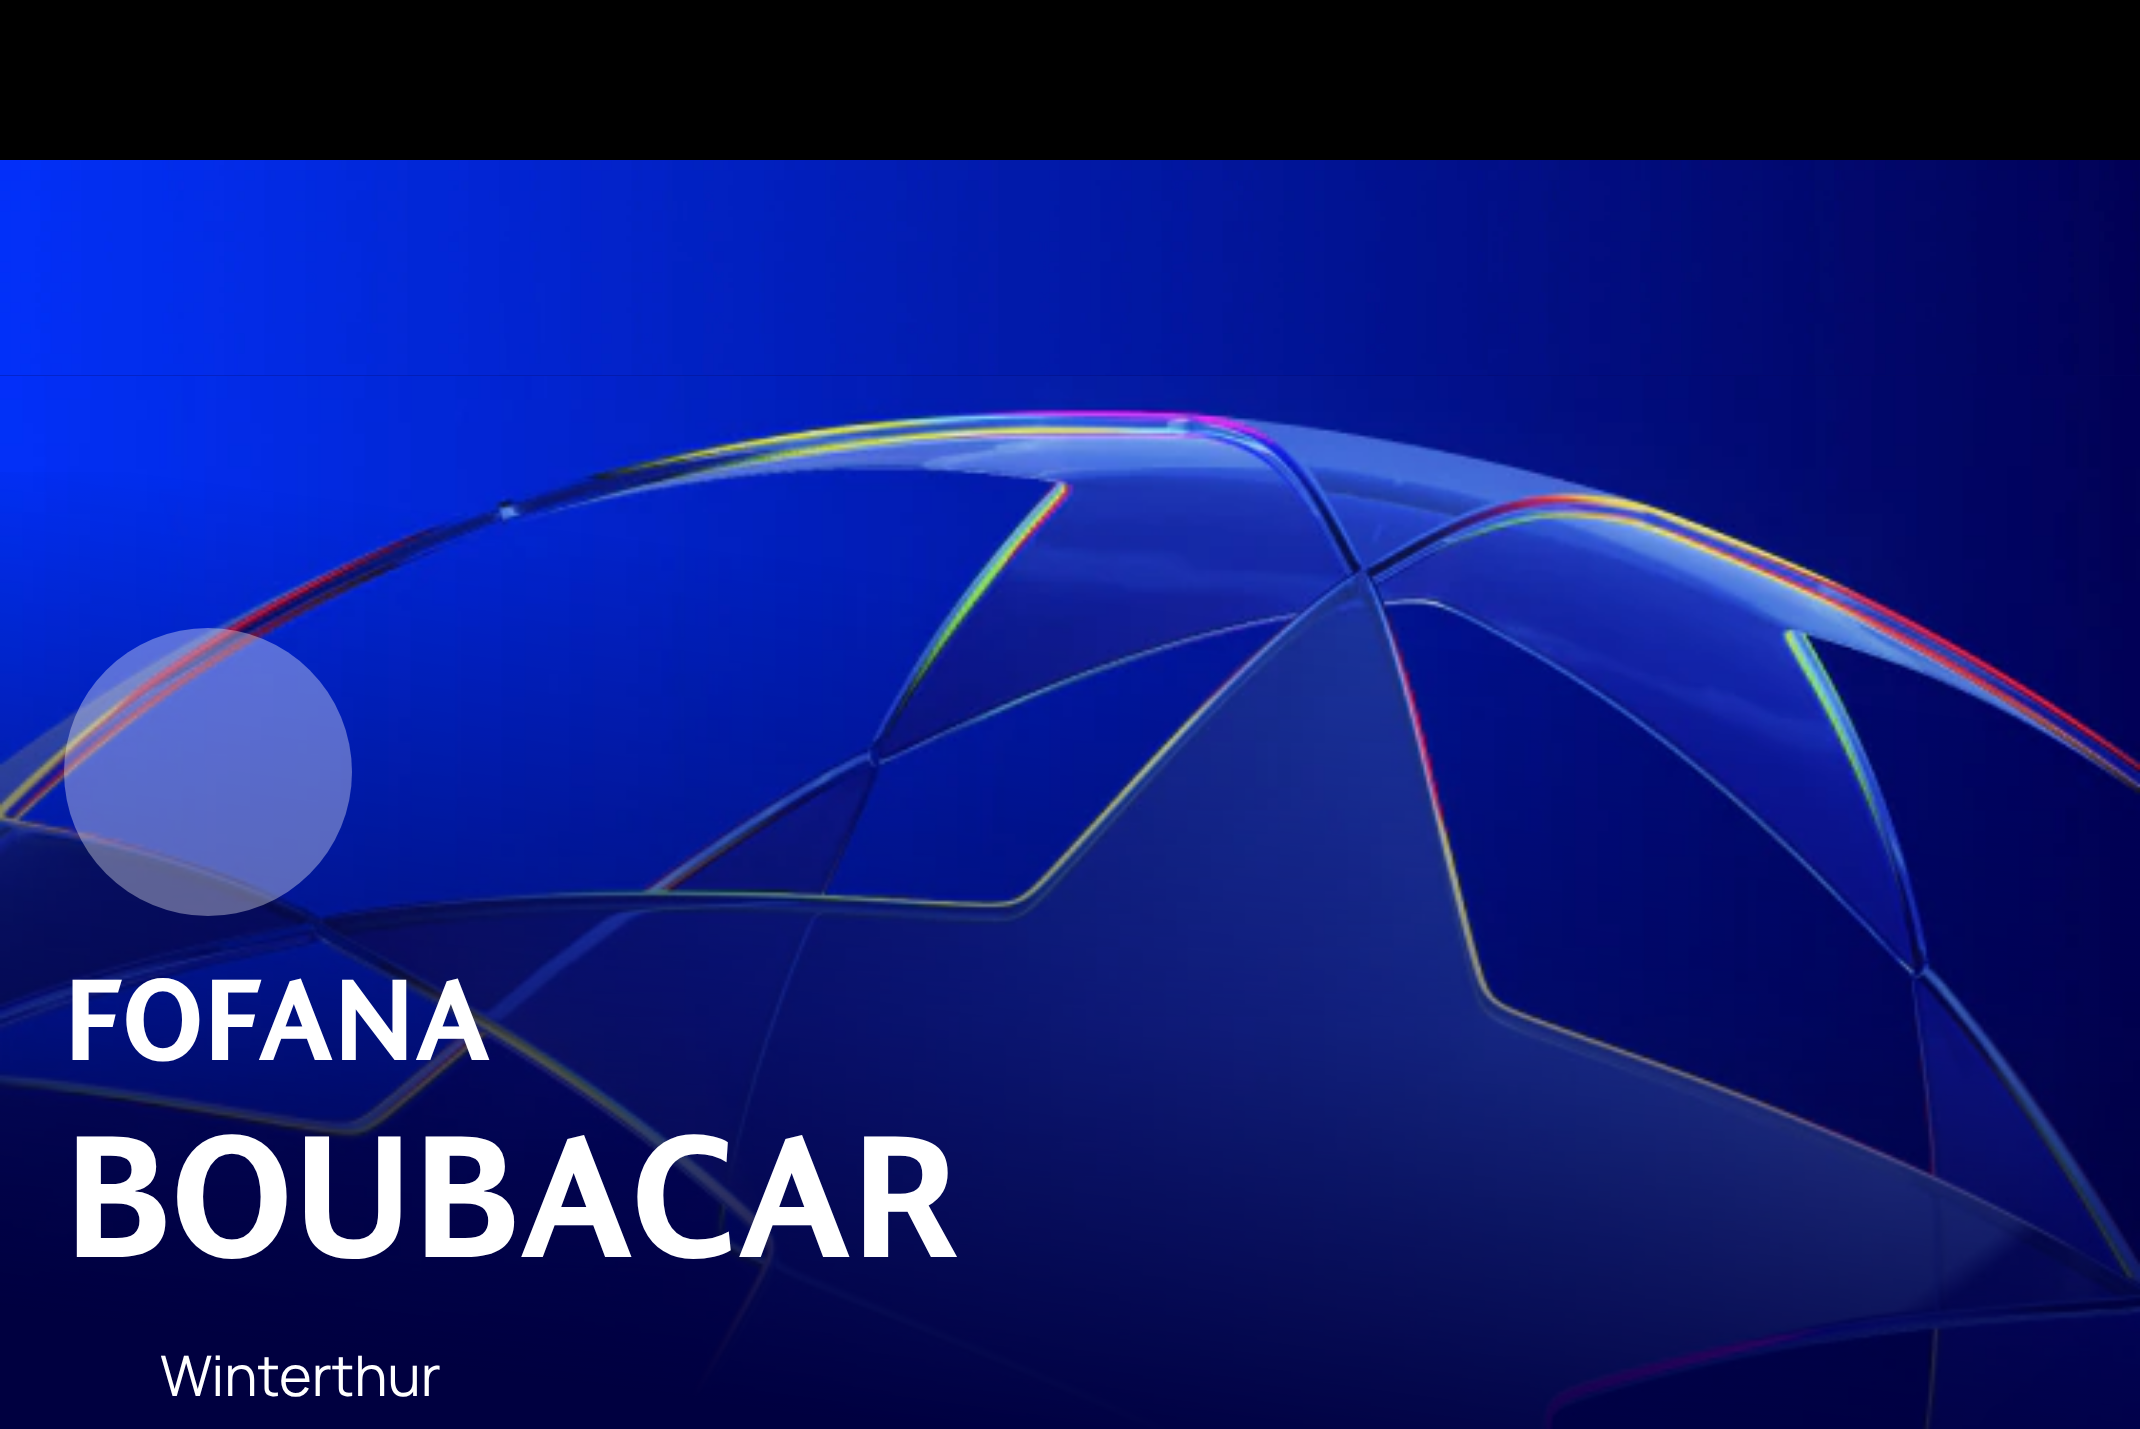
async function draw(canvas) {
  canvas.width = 2140;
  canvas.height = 1429;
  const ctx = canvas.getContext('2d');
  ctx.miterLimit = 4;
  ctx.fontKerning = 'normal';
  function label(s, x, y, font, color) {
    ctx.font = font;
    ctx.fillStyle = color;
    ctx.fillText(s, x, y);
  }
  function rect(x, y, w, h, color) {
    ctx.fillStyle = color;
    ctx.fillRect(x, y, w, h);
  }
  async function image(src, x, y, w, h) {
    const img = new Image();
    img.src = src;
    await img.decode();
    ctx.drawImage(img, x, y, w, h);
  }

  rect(0, 0, 2140, 1429, '#fff');
  await image('assets/img1.png', 0, 160, 2140, 216);
  rect(0, 0, 2140, 160, '#000');
  await image('assets/img2.png', 0, 160, 2140, 216);
  await image('assets/img3.png', 0, 376, 2140, 1053);
  await image('assets/img4.png', 0, 472, 2140, 957);
  ctx.fillStyle = '#ffffff59';
  ctx.beginPath();
  ctx.arc(208, 772, 144, 0, 2 * Math.PI);
  ctx.fill();
  label('FOFANA', 64, 1060, 'bold 128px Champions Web', '#fff');
  label('BOUBACAR', 64, 1257, 'bold 192px Champions Web', '#fff');
  label('Winterthur', 160, 1396, '56px Manrope', '#fff');
}

draw(document.querySelector('canvas'));
